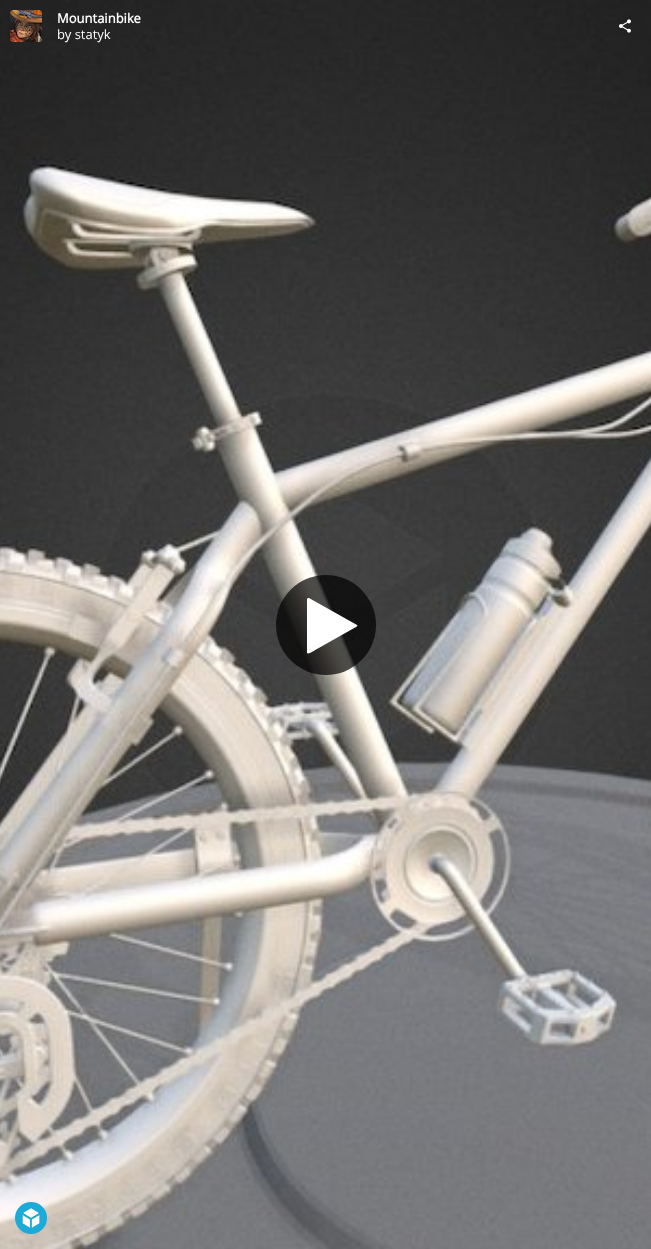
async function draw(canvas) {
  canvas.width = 651;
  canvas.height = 1249;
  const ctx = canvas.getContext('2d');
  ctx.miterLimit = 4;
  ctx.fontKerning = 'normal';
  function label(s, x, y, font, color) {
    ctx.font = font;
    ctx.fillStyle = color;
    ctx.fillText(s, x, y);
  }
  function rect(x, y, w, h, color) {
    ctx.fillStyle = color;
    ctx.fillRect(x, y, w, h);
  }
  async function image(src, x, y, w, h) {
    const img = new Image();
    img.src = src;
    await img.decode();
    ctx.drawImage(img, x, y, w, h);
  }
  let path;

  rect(0, 0, 651, 1249, '#fff');
  await image('assets/img1.png', 0, 0, 651, 1249);
  ctx.fillStyle = '#000000b3';
  ctx.beginPath();
  ctx.arc(326, 625, 50, 0, 2 * Math.PI);
  ctx.fill();
  ctx.fillStyle = '#fff';
  path = new Path2D('M356 627L317 649C316 649 309 655 307 653V599C307 598 308 598 309 598L357 625C358 626 357 626 356 627Z');
  ctx.fill(path);
  await image('assets/img2.png', 15, 1202, 32, 32);
  await image('assets/img3.png', 10, 10, 32, 32);
  label('Mountainbike', 57, 23, 'bold 13px Open Sans', '#fff');
  label('by statyk', 57, 39, '13px Open Sans', '#fff');
  await image('assets/img4.png', 619, 19, 12, 14);
}

draw(document.querySelector('canvas'));
